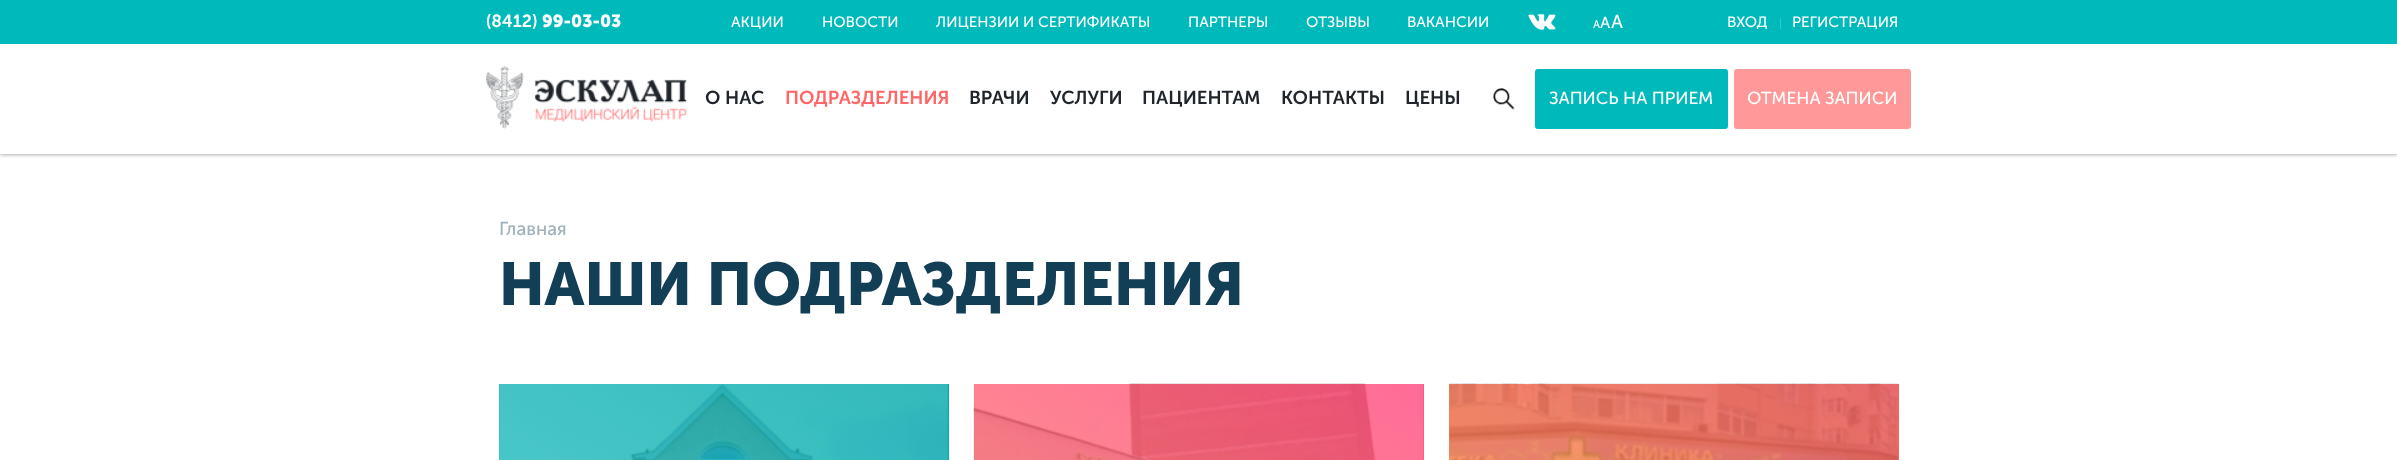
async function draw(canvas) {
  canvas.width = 2397;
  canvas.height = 460;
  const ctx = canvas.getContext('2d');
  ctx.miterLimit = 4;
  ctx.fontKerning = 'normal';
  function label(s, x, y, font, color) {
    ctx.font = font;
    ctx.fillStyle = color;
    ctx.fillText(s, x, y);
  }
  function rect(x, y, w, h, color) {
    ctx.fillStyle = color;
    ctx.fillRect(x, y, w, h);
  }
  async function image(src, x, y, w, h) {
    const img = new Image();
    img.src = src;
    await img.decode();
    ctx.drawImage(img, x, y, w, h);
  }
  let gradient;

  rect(0, 0, 2397, 460, '#fff');
  ctx.fillStyle = '#00000040';
  ctx.filter = 'blur(2px)';
  ctx.beginPath();
  ctx.rect(0, 0, 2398, 154);
  ctx.fill();
  ctx.filter = 'none';
  ctx.filter = 'blur(2px)';
  ctx.beginPath();
  ctx.rect(0, 44, 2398, 110);
  ctx.fill();
  ctx.filter = 'none';
  rect(0, 0, 2397, 44, '#00b9bb');
  label('(8412)', 486, 27, '600 17.5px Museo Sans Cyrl', '#fff');
  label('99-03-03', 542, 27, 'bold 17.5px Museo Sans Cyrl', '#fff');
  label('АКЦИИ', 731, 27, '15px Museo Sans Cyrl', '#fff');
  label('НОВОСТИ', 822, 27, '15px Museo Sans Cyrl', '#fff');
  label('ЛИЦЕНЗИИ И СЕРТИФИКАТЫ', 936, 27, '15px Museo Sans Cyrl', '#fff');
  label('ПАРТНЕРЫ', 1188, 27, '15px Museo Sans Cyrl', '#fff');
  label('ОТЗЫВЫ', 1306, 27, '15px Museo Sans Cyrl', '#fff');
  label('ВАКАНСИИ', 1407, 27, '15px Museo Sans Cyrl', '#fff');
  await image('assets/img1.png', 1528, 14, 28, 16);
  label('А', 1593, 28, '11px Museo Sans Cyrl', '#fff');
  label('А', 1600, 28, '16px Museo Sans Cyrl', '#fff');
  label('А', 1611, 28, '18.75px Museo Sans Cyrl', '#fff');
  label('ВХОД', 1727, 27, '15px Museo Sans Cyrl', '#fff');
  rect(1780, 18, 1, 11, '#33c7c9');
  label('РЕГИСТРАЦИЯ', 1792, 27, '15px Museo Sans Cyrl', '#fff');
  rect(0, 44, 2397, 110, '#fff');
  await image('assets/img2.png', 486, 66, 201, 63);
  label('О НАС', 705, 104, '600 18.75px Museo Sans Cyrl', '#1f252b');
  label('ПОДРАЗДЕЛЕНИЯ', 785, 104, '600 18.75px Museo Sans Cyrl', '#f66');
  label('ВРАЧИ', 969, 104, '600 18.75px Museo Sans Cyrl', '#1f252b');
  label('УСЛУГИ', 1050, 104, '600 18.75px Museo Sans Cyrl', '#1f252b');
  label('ПАЦИЕНТАМ', 1142, 104, '600 18.75px Museo Sans Cyrl', '#1f252b');
  label('КОНТАКТЫ', 1281, 104, '600 18.75px Museo Sans Cyrl', '#1f252b');
  label('ЦЕНЫ', 1405, 104, '600 18.75px Museo Sans Cyrl', '#1f252b');
  await image('assets/img3.png', 1493, 88, 22, 22);
  ctx.fillStyle = '#00b9bb';
  ctx.beginPath();
  ctx.roundRect(1535.5, 69.5, 192, 59, 2);
  ctx.fill();
  ctx.strokeStyle = '#00b9bb';
  ctx.stroke();
  label('ЗАПИСЬ НА ПРИЕМ', 1549, 104, '17.5px Museo Sans Cyrl', '#fff');
  ctx.fillStyle = '#f99';
  ctx.beginPath();
  ctx.roundRect(1734.5, 69.5, 176, 59, 2);
  ctx.fill();
  ctx.strokeStyle = '#f99';
  ctx.stroke();
  label('ОТМЕНА ЗАПИСИ', 1747, 104, '17.5px Museo Sans Cyrl', '#fff');
  label('Главная', 499, 235, '18.75px Museo Sans Cyrl', '#a1b1bc');
  label('НАШИ ПОДРАЗДЕЛЕНИЯ', 499, 305, 'bold 60px Museo Sans Cyrl', '#123e56');
  gradient = ctx.createLinearGradient(591, 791, 857, 331);
  gradient.addColorStop(0, '#33c7c9');
  gradient.addColorStop(1, '#00a8a9');
  ctx.fillStyle = gradient;
  ctx.fillRect(499, 384, 450, 76);
  await image('assets/img4.png', 499, 384, 450, 76);
  gradient = ctx.createLinearGradient(1066, 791, 1332, 331);
  gradient.addColorStop(0, '#ff886e');
  gradient.addColorStop(1, '#ff477d');
  ctx.fillStyle = gradient;
  ctx.fillRect(974, 384, 450, 76);
  await image('assets/img5.png', 973, 383, 451, 77);
  gradient = ctx.createLinearGradient(1541, 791, 1807, 331);
  gradient.addColorStop(0, '#ff943e');
  gradient.addColorStop(1, '#fe6161');
  ctx.fillStyle = gradient;
  ctx.fillRect(1449, 384, 450, 76);
  await image('assets/img6.png', 1449, 383, 450, 77);
}

draw(document.querySelector('canvas'));
